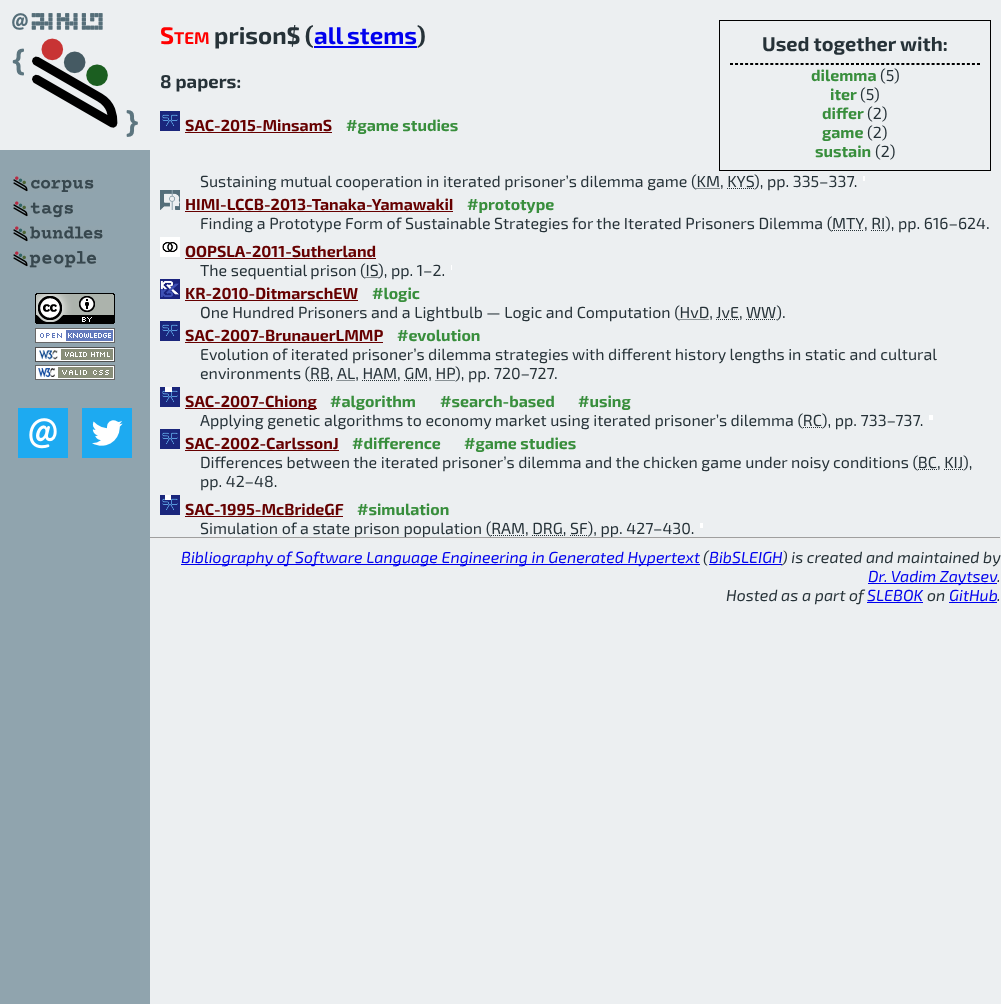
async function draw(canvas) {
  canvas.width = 1001;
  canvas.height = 1004;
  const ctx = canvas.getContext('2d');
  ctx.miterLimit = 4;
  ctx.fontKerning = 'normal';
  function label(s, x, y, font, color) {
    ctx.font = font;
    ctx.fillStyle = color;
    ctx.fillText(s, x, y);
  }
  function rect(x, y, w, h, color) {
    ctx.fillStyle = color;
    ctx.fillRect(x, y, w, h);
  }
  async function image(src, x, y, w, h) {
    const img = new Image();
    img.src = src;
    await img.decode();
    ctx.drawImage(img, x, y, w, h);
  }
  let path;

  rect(0, 0, 1001, 1004, '#eceff1');
  rect(0, 150, 150, 854, '#90a4ae');
  await image('assets/img1.png', 0, 0, 150, 150);
  await image('assets/img2.png', 13, 176, 81, 16);
  await image('assets/img3.png', 13, 201, 60, 17);
  await image('assets/img4.png', 13, 226, 90, 16);
  await image('assets/img5.png', 13, 251, 84, 17);
  await image('assets/img6.png', 35, 293, 80, 31);
  await image('assets/img7.png', 35, 328, 80, 15);
  await image('assets/img8.png', 35, 347, 80, 15);
  await image('assets/img9.png', 35, 365, 80, 15);
  await image('assets/img10.png', 18, 408, 50, 50);
  await image('assets/img11.png', 82, 408, 50, 50);
  label('S', 160, 44, 'bold 24px "Exo 2"', '#f00');
  label('TEM', 174, 44, 'bold 17px "Exo 2"', '#f00');
  ctx.wordSpacing = '-1px';
  label('prison$ (', 214, 44, 'bold 24px "Exo 2"', '#263238');
  label('all stems', 314, 44, 'bold 24px "Exo 2"', '#00e');
  rect(314, 46, 103, 2, '#00e');
  ctx.wordSpacing = '0px';
  label(')', 417, 44, 'bold 24px "Exo 2"', '#263238');
  ctx.strokeStyle = '#000';
  ctx.strokeRect(719.5, 20.5, 271, 150);
  label('Used together with:', 762, 51, 'bold 20px "Exo 2"', '#263238');
  path = new Path2D('M730 63.5H980');
  ctx.setLineDash([3, 2.04]);
  ctx.stroke(path);
  rect(979, 63, 1, 2, '#000');
  path = new Path2D('M730 64.5H980');
  ctx.stroke(path);
  label('dilemma', 811, 81, 'bold 16px "Exo 2"', '#388e3c');
  label('(5)', 880, 81, '16px "Exo 2"', '#263238');
  label('iter', 830, 100, 'bold 16px "Exo 2"', '#388e3c');
  label('(5)', 860, 100, '16px "Exo 2"', '#263238');
  label('differ', 822, 119, 'bold 16px "Exo 2"', '#388e3c');
  label('(2)', 867, 119, '16px "Exo 2"', '#263238');
  label('game', 822, 138, 'bold 16px "Exo 2"', '#388e3c');
  label('(2)', 867, 138, '16px "Exo 2"', '#263238');
  label('sustain', 815, 157, 'bold 16px "Exo 2"', '#388e3c');
  label('(2)', 875, 157, '16px "Exo 2"', '#263238');
  label('8 papers:', 160, 88, 'bold 18.5px "Exo 2"', '#263238');
  await image('assets/img12.png', 160, 111, 20, 20);
  label('SAC-2015-MinsamS', 185, 131, 'bold 16px "Exo 2"', '#600');
  rect(185, 132, 147, 1, '#600');
  label('#game studies', 346, 131, 'bold 16px "Exo 2"', '#388e3c');
  label('Sustaining mutual cooperation in iterated prisoner’s dilemma game (KM, KYS', 200, 187, '16px "Exo 2"', '#263238');
  label('), pp. 335–337.', 754, 187, '16px "Exo 2"', '#263238');
  path = new Path2D('M696.5 188.5H720M727 188.5H754.5');
  ctx.strokeStyle = '#263238';
  ctx.setLineDash([1, 1]);
  ctx.stroke(path);
  rect(863, 176, 2, 5, '#fff');
  await image('assets/img13.png', 160, 190, 20, 20);
  label('HIMI-LCCB-2013-Tanaka-YamawakiI', 185, 210, 'bold 16px "Exo 2"', '#600');
  rect(185, 211, 268, 1, '#600');
  label('#prototype', 467, 210, 'bold 16px "Exo 2"', '#388e3c');
  label('Finding a Prototype Form of Sustainable Strategies for the Iterated Prisoners Dilemma (MTY', 200, 229, '16px "Exo 2"', '#263238');
  label(', RI', 864, 229, '16px "Exo 2"', '#263238');
  label('), pp. 616–624.', 885, 229, '16px "Exo 2"', '#263238');
  path = new Path2D('M832 230.5H863.5');
  ctx.stroke(path);
  path = new Path2D('M871 230.5H884.5');
  ctx.stroke(path);
  await image('assets/img14.png', 160, 237, 20, 20);
  label('OOPSLA-2011-Sutherland', 185, 257, 'bold 16px "Exo 2"', '#600');
  rect(185, 258, 191, 1, '#600');
  label('The sequential prison (IS', 200, 276, '16px "Exo 2"', '#263238');
  path = new Path2D('M365.5 277.5H378.5');
  ctx.stroke(path);
  label('), pp. 1–2.', 378, 276, '16px "Exo 2"', '#263238');
  rect(451, 265, 1, 5, '#fff');
  await image('assets/img15.png', 160, 279, 20, 20);
  label('KR-2010-DitmarschEW', 185, 299, 'bold 16px "Exo 2"', '#600');
  rect(185, 300, 173, 1, '#600');
  label('#logic', 372, 299, 'bold 16px "Exo 2"', '#388e3c');
  label('One Hundred Prisoners and a Lightbulb — Logic and Computation (HvD,', 200, 318, '16px "Exo 2"', '#263238');
  path = new Path2D('M679.5 319.5H709.5M716 319.5H739');
  ctx.stroke(path);
  label('JvE, WW).', 716, 318, '16px "Exo 2"', '#263238');
  path = new Path2D('M746 319.5H776.5');
  ctx.stroke(path);
  await image('assets/img12.png', 160, 321, 20, 20);
  label('SAC-2007-BrunauerLMMP', 185, 341, 'bold 16px "Exo 2"', '#600');
  rect(185, 342, 198, 1, '#600');
  label('#evolution', 397, 341, 'bold 16px "Exo 2"', '#388e3c');
  label('Evolution of iterated prisoner’s dilemma strategies with different history lengths in static and cultural', 200, 360, '16px "Exo 2"', '#263238');
  label('environments (', 200, 379, '16px "Exo 2"', '#263238');
  path = new Path2D('M310 380.5H330');
  ctx.stroke(path);
  label('RB,', 310, 379, '16px "Exo 2"', '#263238');
  path = new Path2D('M336.5 380.5H355');
  ctx.stroke(path);
  label('AL, HAM, GM, HP', 337, 379, '16px "Exo 2"', '#263238');
  label('), pp. 720–727.', 455, 379, '16px "Exo 2"', '#263238');
  path = new Path2D('M362 380.5H397');
  ctx.stroke(path);
  path = new Path2D('M404 380.5H428M435.5 380.5H455');
  ctx.stroke(path);
  await image('assets/img16.png', 160, 387, 20, 20);
  rect(165, 387, 7, 5, '#fff');
  rect(185, 408, 132, 1, '#600');
  label('SAC-2007-Chiong', 185, 407, 'bold 16px "Exo 2"', '#600');
  label('#algorithm', 330, 407, 'bold 16px "Exo 2"', '#388e3c');
  label('#search-based', 440, 407, 'bold 16px "Exo 2"', '#388e3c');
  label('#using', 578, 407, 'bold 16px "Exo 2"', '#388e3c');
  label('Applying genetic algorithms to economy market using iterated prisoner’s dilemma (RC), pp. 733–737.', 200, 426, '16px "Exo 2"', '#263238');
  path = new Path2D('M803 427.5H822');
  ctx.stroke(path);
  rect(929, 415, 4, 5, '#fff');
  await image('assets/img12.png', 160, 429, 20, 20);
  label('SAC-2002-CarlssonJ', 185, 449, 'bold 16px "Exo 2"', '#600');
  rect(185, 450, 154, 1, '#600');
  label('#difference', 352, 449, 'bold 16px "Exo 2"', '#388e3c');
  label('#game studies', 464, 449, 'bold 16px "Exo 2"', '#388e3c');
  label('Differences between the iterated prisoner’s dilemma and the chicken game under noisy conditions (BC, KIJ', 200, 468, '16px "Exo 2"', '#263238');
  label('),', 963, 468, '16px "Exo 2"', '#263238');
  path = new Path2D('M918 469.5H937M944 469.5H963');
  ctx.stroke(path);
  label('pp. 42–48.', 200, 487, '16px "Exo 2"', '#263238');
  await image('assets/img12.png', 160, 495, 20, 20);
  rect(165, 495, 6, 5, '#fff');
  label('SAC-1995-McBrideGF', 185, 515, 'bold 16px "Exo 2"', '#600');
  rect(185, 516, 158, 1, '#600');
  label('#simulation', 357, 515, 'bold 16px "Exo 2"', '#388e3c');
  label('Simulation of a state prison population (RAM, DRG, SF), pp. 427–430.', 200, 534, '16px "Exo 2"', '#263238');
  path = new Path2D('M491 535.5H525');
  ctx.stroke(path);
  path = new Path2D('M532 535.5H563M570 535.5H587.5');
  ctx.stroke(path);
  rect(700, 523, 3, 5, '#fff');
  rect(150, 537, 851, 1, '#9f9f9f');
  rect(1000, 537, 1, 2, '#eee');
  rect(150, 538, 851, 1, '#eee');
  rect(181, 564, 519, 1, '#00e');
  label('Bibliography of Software Language Engineering in Generated Hypertext', 181, 563, 'italic 16px "Exo 2"', '#00e');
  label('(', 703, 563, 'italic 16px "Exo 2"', '#263238');
  label('BibSLEIGH', 709, 563, 'italic 16px "Exo 2"', '#00e');
  rect(709, 564, 73, 1, '#00e');
  label(') is created and maintained by', 782, 563, 'italic 16px "Exo 2"', '#263238');
  rect(868, 583, 129, 1, '#00e');
  label('Dr. Vadim Zaytsev', 868, 582, 'italic 16px "Exo 2"', '#00e');
  label('.', 997, 582, 'italic 16px "Exo 2"', '#263238');
  label('Hosted as a part of', 726, 601, 'italic 16px "Exo 2"', '#263238');
  rect(867, 602, 56, 1, '#00e');
  label('SLEBOK', 867, 601, 'italic 16px "Exo 2"', '#00e');
  label('on', 927, 601, 'italic 16px "Exo 2"', '#263238');
  label('GitHub', 949, 601, 'italic 16px "Exo 2"', '#00e');
  label('.', 997, 601, 'italic 16px "Exo 2"', '#263238');
  rect(949, 602, 48, 1, '#00e');
}

draw(document.querySelector('canvas'));
